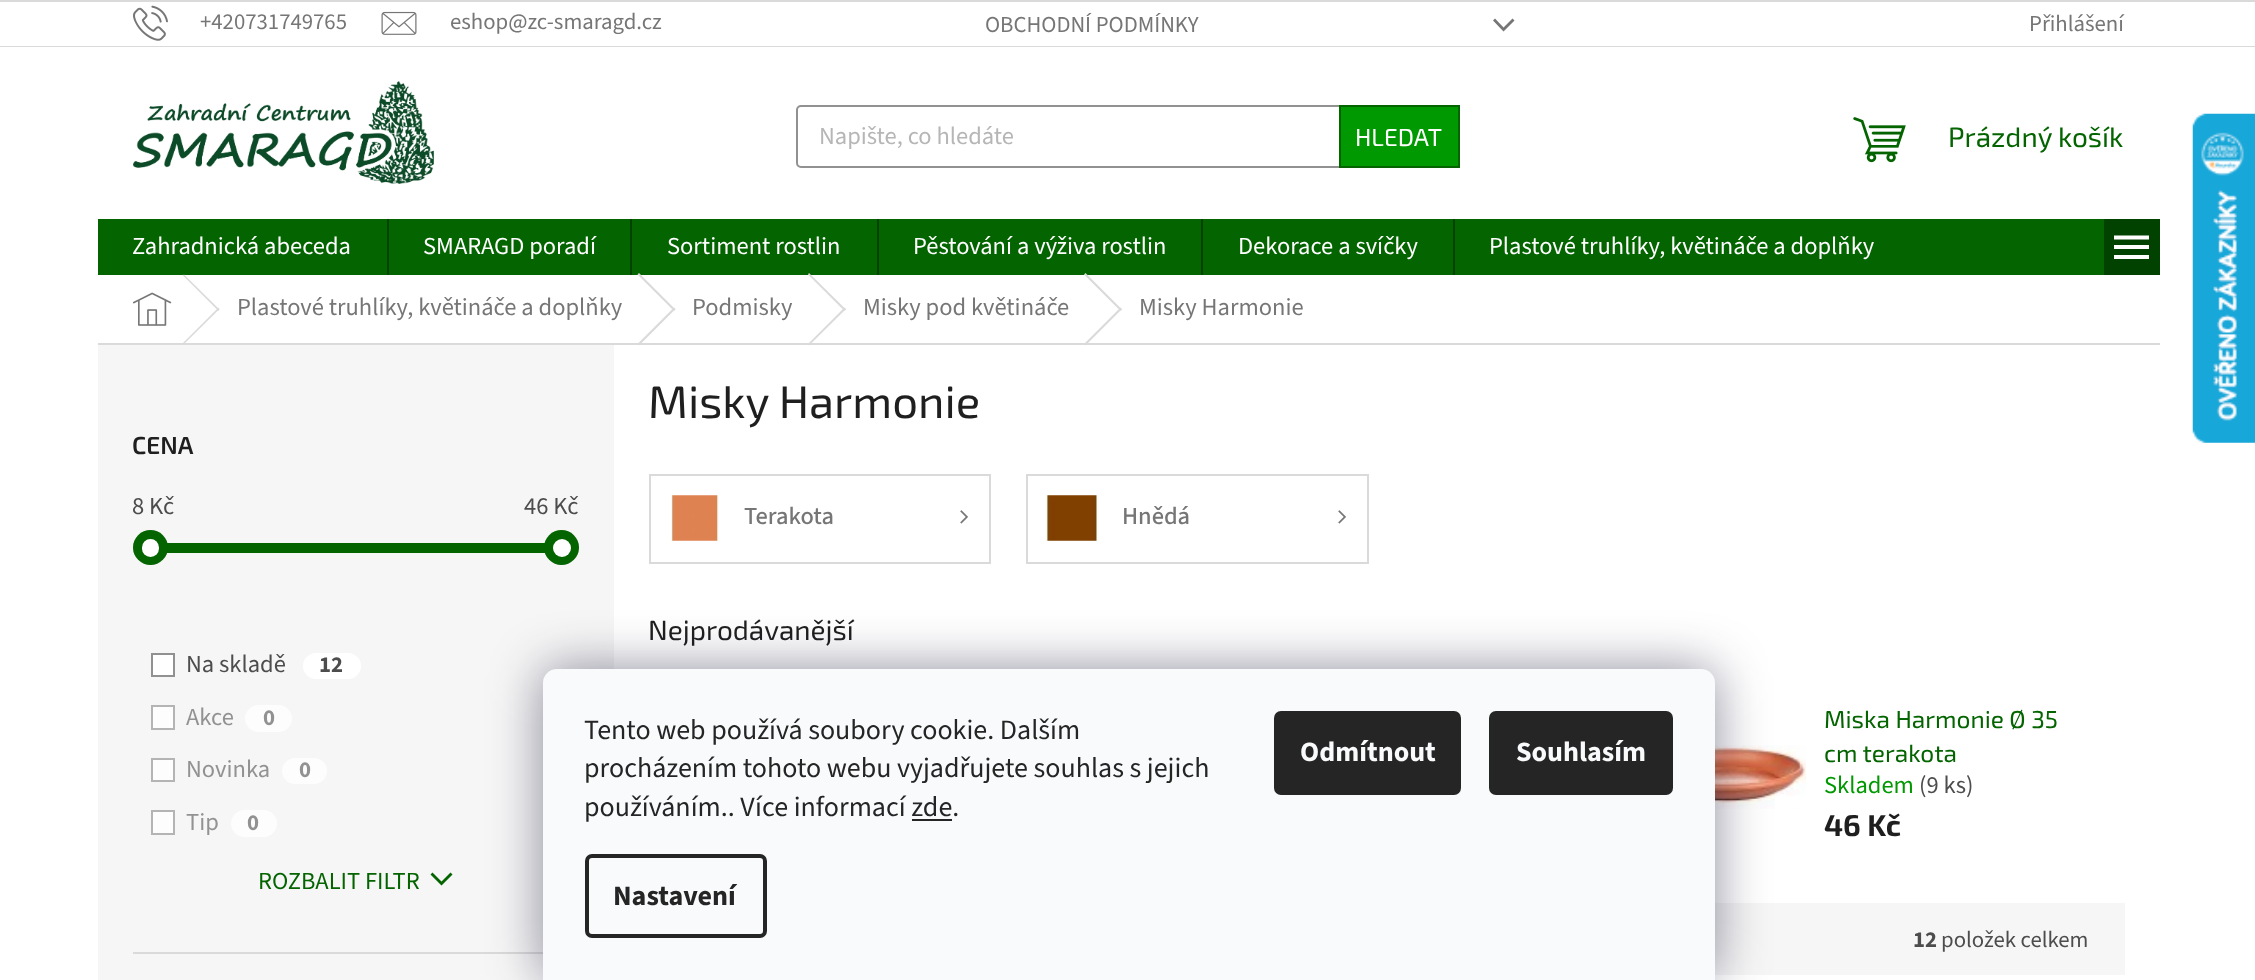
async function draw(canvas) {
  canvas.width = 2255;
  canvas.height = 980;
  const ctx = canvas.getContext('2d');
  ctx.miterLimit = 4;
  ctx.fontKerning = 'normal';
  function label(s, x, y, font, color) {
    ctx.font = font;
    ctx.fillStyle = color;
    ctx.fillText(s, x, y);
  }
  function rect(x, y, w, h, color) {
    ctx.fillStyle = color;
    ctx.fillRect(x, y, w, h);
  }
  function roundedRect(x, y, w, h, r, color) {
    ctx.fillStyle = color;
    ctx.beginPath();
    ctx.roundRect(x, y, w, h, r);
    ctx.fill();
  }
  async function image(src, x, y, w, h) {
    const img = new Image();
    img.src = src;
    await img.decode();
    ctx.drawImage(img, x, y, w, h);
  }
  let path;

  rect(0, 0, 2255, 980, '#fff');
  rect(0, 0, 2255, 2, '#dadada');
  rect(0, 46, 2255, 1, '#dadada');
  await image('assets/img1.png', 133, 5, 35, 36);
  label('+420731749765', 200, 29, '22.75px "Source Sans 3"', '#767676');
  await image('assets/img2.png', 381, 11, 36, 24);
  label('eshop@zc-smaragd.cz', 450, 29, '22.75px "Source Sans 3"', '#767676');
  label('OBCHODNÍ PODMÍNKY', 985, 32, '22.75px "Source Sans 3"', '#767676');
  path = new Path2D('M1493 20.5L1495 18.5L1503.5 27.5L1512.5 18.5L1514.5 20.5L1503.5 31.5Z');
  ctx.fill(path);
  label('Přihlášení', 2029, 31, '22.75px "Source Sans 3"', '#767676');
  await image('assets/img3.png', 133, 81, 301, 103);
  ctx.beginPath();
  ctx.roundRect(797, 106, 662, 61, 4);
  ctx.strokeStyle = '#919191';
  ctx.lineWidth = 2;
  ctx.stroke();
  label('Napište, co hledáte', 819, 144, '24.5px "Source Sans 3"', '#b6b6b6');
  ctx.fillStyle = '#009901';
  ctx.beginPath();
  ctx.rect(1340, 106, 119, 61);
  ctx.fill();
  ctx.strokeStyle = '#036400';
  ctx.stroke();
  label('HLEDAT', 1355, 146, '24.5px "Exo 2"', '#fff');
  await image('assets/img4.png', 1853, 117, 53, 46);
  label('Prázdný košík', 1948, 147, '28px "Exo 2"', '#036400');
  rect(98, 219, 2006, 56, '#036400');
  label('Zahradnická abeceda', 132, 254, '24.5px "Source Sans 3"', '#fff');
  rect(387, 219, 2, 56, '#024200');
  label('SMARAGD poradí', 423, 254, '24.5px "Source Sans 3"', '#fff');
  rect(630, 219, 2, 56, '#024200');
  label('Sortiment rostlin', 667, 254, '24.5px "Source Sans 3"', '#fff');
  rect(877, 219, 2, 56, '#024200');
  label('Pěstování a výživa rostlin', 913, 254, '24.5px "Source Sans 3"', '#fff');
  rect(1201, 219, 2, 56, '#024200');
  label('Dekorace a svíčky', 1238, 254, '24.5px "Source Sans 3"', '#fff');
  rect(1453, 219, 2, 56, '#024200');
  label('Plastové truhlíky, květináče a doplňky', 1489, 254, '24.5px "Source Sans 3"', '#fff');
  rect(2104, 219, 56, 56, '#024200');
  ctx.fillStyle = '#fff';
  path = new Path2D('M2114 259H2149V255H2114ZM2114 249H2149V245H2114ZM2114 235.5V239.5H2149V235.5Z');
  ctx.fill(path);
  rect(98, 343, 2062, 2, '#dadada');
  await image('assets/img5.png', 132, 292, 40, 34);
  path = new Path2D('M183 275.5L184 274.5L219.5 309.5L218.5 311Z');
  ctx.fill(path);
  path = new Path2D('M218.5 307.5L219.5 309L184 344L183 343Z');
  ctx.fill(path);
  label('Plastové truhlíky, květináče a doplňky', 237, 315, '24.5px "Source Sans 3"', '#767676');
  ctx.fillStyle = '#dadada';
  path = new Path2D('M637.5 274.5L639 273L675.5 309.5L674 311Z');
  ctx.fill(path);
  path = new Path2D('M674 307.5L675.5 309L639 345.5L637.5 344Z');
  ctx.fill(path);
  label('Podmisky', 692, 315, '24.5px "Source Sans 3"', '#767676');
  ctx.fillStyle = '#dadada';
  path = new Path2D('M808 274.5L809 273L846 309.5L844.5 311Z');
  ctx.fill(path);
  path = new Path2D('M844.5 307.5L846 309L809 345.5L808 344Z');
  ctx.fill(path);
  label('Misky pod květináče', 863, 315, '24.5px "Source Sans 3"', '#767676');
  ctx.fillStyle = '#dadada';
  path = new Path2D('M1084 274.5L1085.5 273L1122 309.5L1120.5 311Z');
  ctx.fill(path);
  path = new Path2D('M1120.5 307.5L1122 309L1085.5 345.5L1084 344Z');
  ctx.fill(path);
  label('Misky Harmonie', 1139, 315, '24.5px "Source Sans 3"', '#767676');
  rect(98, 345, 516, 635, '#f6f6f6');
  rect(133, 952, 410, 2, '#dadada');
  label('CENA', 132, 454, '600 24.5px "Exo 2"', '#1f1f1f');
  label('8 Kč', 132, 514, '24.5px "Source Sans 3"', '#4d4d4d');
  label('46 Kč', 524, 514, '24.5px "Source Sans 3"', '#4d4d4d');
  rect(133, 543, 446, 10, '#dadada');
  rect(167, 543, 378, 10, '#036400');
  ctx.beginPath();
  ctx.arc(150.5, 547.5, 17.5, 0, 2 * Math.PI);
  ctx.fill();
  roundedRect(142, 539, 17, 18, 8.5, '#fff');
  ctx.fillStyle = '#036400';
  ctx.beginPath();
  ctx.arc(561.5, 547.5, 17.5, 0, 2 * Math.PI);
  ctx.fill();
  ctx.fillStyle = '#fff';
  ctx.beginPath();
  ctx.arc(562, 548, 9, 0, 2 * Math.PI);
  ctx.fill();
  ctx.beginPath();
  ctx.rect(152, 654, 22, 22);
  ctx.fill();
  ctx.strokeStyle = '#919191';
  ctx.stroke();
  label('Na skladě', 186, 672, '24.5px "Source Sans 3"', '#4d4d4d');
  roundedRect(303, 653, 58, 26, 13, '#fff');
  label('12', 319, 672, 'bold 22.75px "Source Sans 3"', '#4d4d4d');
  ctx.fillStyle = '#fdfdfd';
  ctx.beginPath();
  ctx.rect(152, 706, 22, 23);
  ctx.fill();
  ctx.strokeStyle = '#b4b4b4';
  ctx.stroke();
  label('Akce', 186, 725, '24.5px "Source Sans 3"', '#929292');
  roundedRect(245, 705, 47, 27, 13.5, '#fdfdfd');
  label('0', 263, 725, 'bold 22.75px "Source Sans 3"', '#929292');
  ctx.fillStyle = '#fdfdfd';
  ctx.beginPath();
  ctx.rect(152, 759, 22, 22);
  ctx.fill();
  ctx.stroke();
  label('Novinka', 186, 777, '24.5px "Source Sans 3"', '#929292');
  roundedRect(282, 758, 45, 26, 13, '#fdfdfd');
  label('0', 299, 777, 'bold 22.75px "Source Sans 3"', '#929292');
  ctx.fillStyle = '#fdfdfd';
  ctx.beginPath();
  ctx.rect(152, 811, 22, 23);
  ctx.fill();
  ctx.stroke();
  label('Tip', 186, 830, '24.5px "Source Sans 3"', '#929292');
  roundedRect(231, 810, 46, 27, 13.5, '#fdfdfd');
  label('0', 247, 830, 'bold 22.75px "Source Sans 3"', '#929292');
  label('ROZBALIT FILTR', 258, 889, '24.5px "Source Sans 3"', '#036400');
  path = new Path2D('M430.5 874.5L432.5 872.5L441.5 881.5L450.5 872.5L452.5 874.5L441.5 885.5Z');
  ctx.fill(path);
  label('Misky Harmonie', 648, 418, '45.5px "Exo 2"', '#1f1f1f');
  ctx.strokeStyle = '#dadada';
  ctx.strokeRect(650, 475, 340, 88);
  await image('assets/img6.png', 671, 495, 48, 46);
  label('Terakota', 744, 524, '500 24.5px "Source Sans 3"', '#767676');
  await image('assets/img7.png', 960, 510, 8, 14);
  ctx.strokeRect(1027, 475, 341, 88);
  await image('assets/img8.png', 1045, 495, 54, 46);
  label('Hnědá', 1122, 524, '500 24.5px "Source Sans 3"', '#767676');
  await image('assets/img7.png', 1338, 510, 8, 14);
  label('Nejprodávanější', 648, 640, '28px "Exo 2"', '#1f1f1f');
  await image('assets/img9.png', 1715, 745, 91, 64);
  label('Miska Harmonie Ø 35', 1824, 728, '24.5px "Exo 2"', '#036400');
  label('cm terakota', 1824, 762, '24.5px "Exo 2"', '#036400');
  label('Skladem', 1824, 793, '24.5px "Source Sans 3"', '#009901');
  label('(9 ks)', 1919, 793, '24.5px "Source Sans 3"', '#4d4d4d');
  label('46 Kč', 1824, 836, 'bold 30px "Exo 2"', '#1f1f1f');
  rect(1715, 903, 410, 72, '#f6f6f6');
  label('12', 1913, 947, 'bold 22.75px "Source Sans 3"', '#4d4d4d');
  label('položek celkem', 1941, 947, '22.75px "Source Sans 3"', '#4d4d4d');
  await image('assets/img10.png', 2192, 113, 63, 330);
  ctx.fillStyle = '#1b193980';
  ctx.filter = 'blur(26px)';
  ctx.beginPath();
  ctx.roundRect(543, 669, 1172, 311, 14);
  ctx.fill();
  ctx.filter = 'none';
  ctx.fillStyle = '#f8fafb';
  ctx.beginPath();
  ctx.roundRect(543, 669, 1172, 311, [14, 14, 0, 0]);
  ctx.fill();
  label('Tento web používá soubory cookie. Dalším', 584, 739, '28px "Source Sans 3"', '#252525');
  label('procházením tohoto webu vyjadřujete souhlas s jejich', 584, 777, '28px "Source Sans 3"', '#252525');
  label('používáním.. Více informací zde.', 584, 816, '28px "Source Sans 3"', '#252525');
  rect(912, 819, 40, 2, '#252525');
  ctx.beginPath();
  ctx.roundRect(587, 856, 178, 80, 5);
  ctx.strokeStyle = '#252525';
  ctx.lineWidth = 4;
  ctx.stroke();
  label('Nastavení', 613, 905, 'bold 28px "Source Sans 3"', '#252525');
  roundedRect(1274, 711, 187, 84, 7, '#252525');
  label('Odmítnout', 1300, 761, 'bold 28px "Source Sans 3"', '#f8fafb');
  roundedRect(1489, 711, 184, 84, 7, '#252525');
  label('Souhlasím', 1516, 761, 'bold 28px "Source Sans 3"', '#f8fafb');
}

draw(document.querySelector('canvas'));
